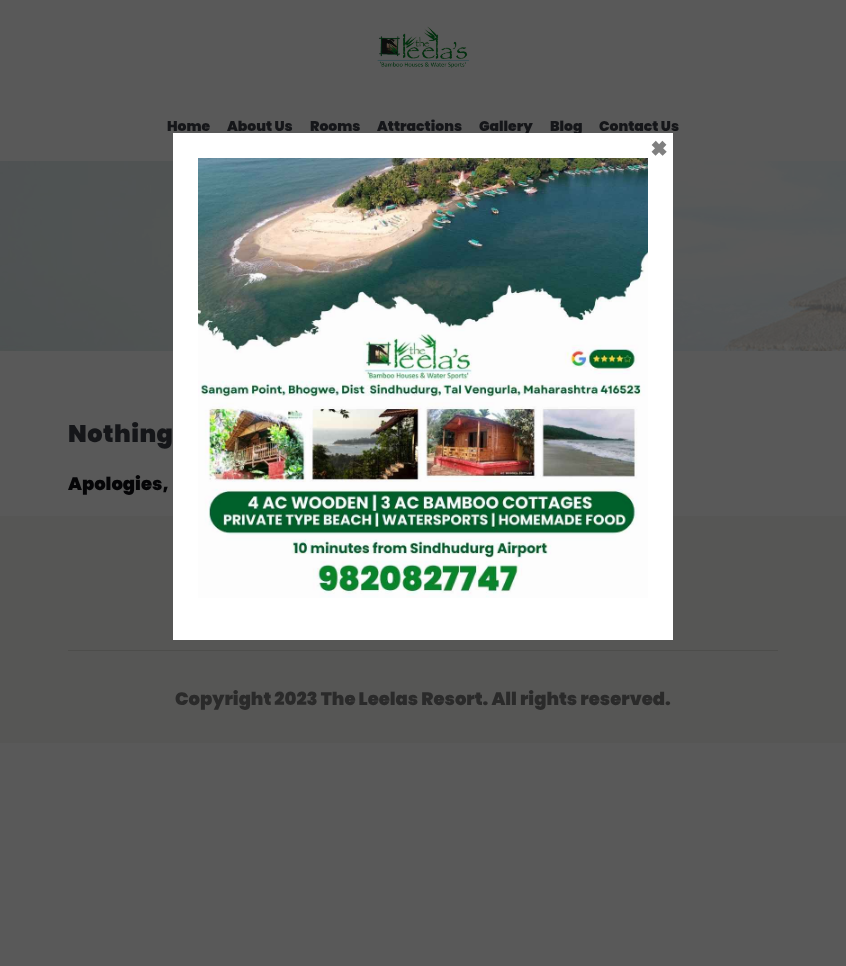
async function draw(canvas) {
  canvas.width = 846;
  canvas.height = 966;
  const ctx = canvas.getContext('2d');
  ctx.miterLimit = 4;
  ctx.fontKerning = 'normal';
  function label(s, x, y, font, color) {
    ctx.font = font;
    ctx.fillStyle = color;
    ctx.fillText(s, x, y);
  }
  function rect(x, y, w, h, color) {
    ctx.fillStyle = color;
    ctx.fillRect(x, y, w, h);
  }
  async function image(src, x, y, w, h) {
    const img = new Image();
    img.src = src;
    await img.decode();
    ctx.drawImage(img, x, y, w, h);
  }

  rect(0, 0, 846, 966, '#595959');
  await image('assets/img1.png', 377, 26, 92, 42);
  label('Home', 167, 131, '900 14px Poppins', '#151619');
  label('About Us', 227, 131, '900 14px Poppins', '#151619');
  label('Rooms', 310, 131, '900 14px Poppins', '#151619');
  label('Attractions', 377, 131, '900 14px Poppins', '#151619');
  label('Gallery', 479, 131, '900 14px Poppins', '#151619');
  label('Blog', 550, 131, '900 14px Poppins', '#151619');
  label('Contact Us', 599, 131, '900 14px Poppins', '#151619');
  await image('assets/img2.png', 0, 161, 846, 190);
  ctx.letterSpacing = '0.5px';
  label('Nothing', 68, 442, '900 24px Poppins', '#151619');
  ctx.letterSpacing = '0px';
  label('Apologies,', 68, 490, '900 18px Poppins', '#050507');
  rect(0, 516, 846, 227, '#565655');
  rect(68, 650, 710, 1, '#4d4d4b');
  label('Copyright 2023 The Leelas Resort. All rights reserved.', 175, 705, '900 18px Poppins', '#2a2a2a');
  rect(173, 133, 500, 507, '#fff');
  label('×', 651, 158, '900 28px Poppins', '#808080');
  await image('assets/img3.png', 198, 158, 450, 440);
}

draw(document.querySelector('canvas'));
